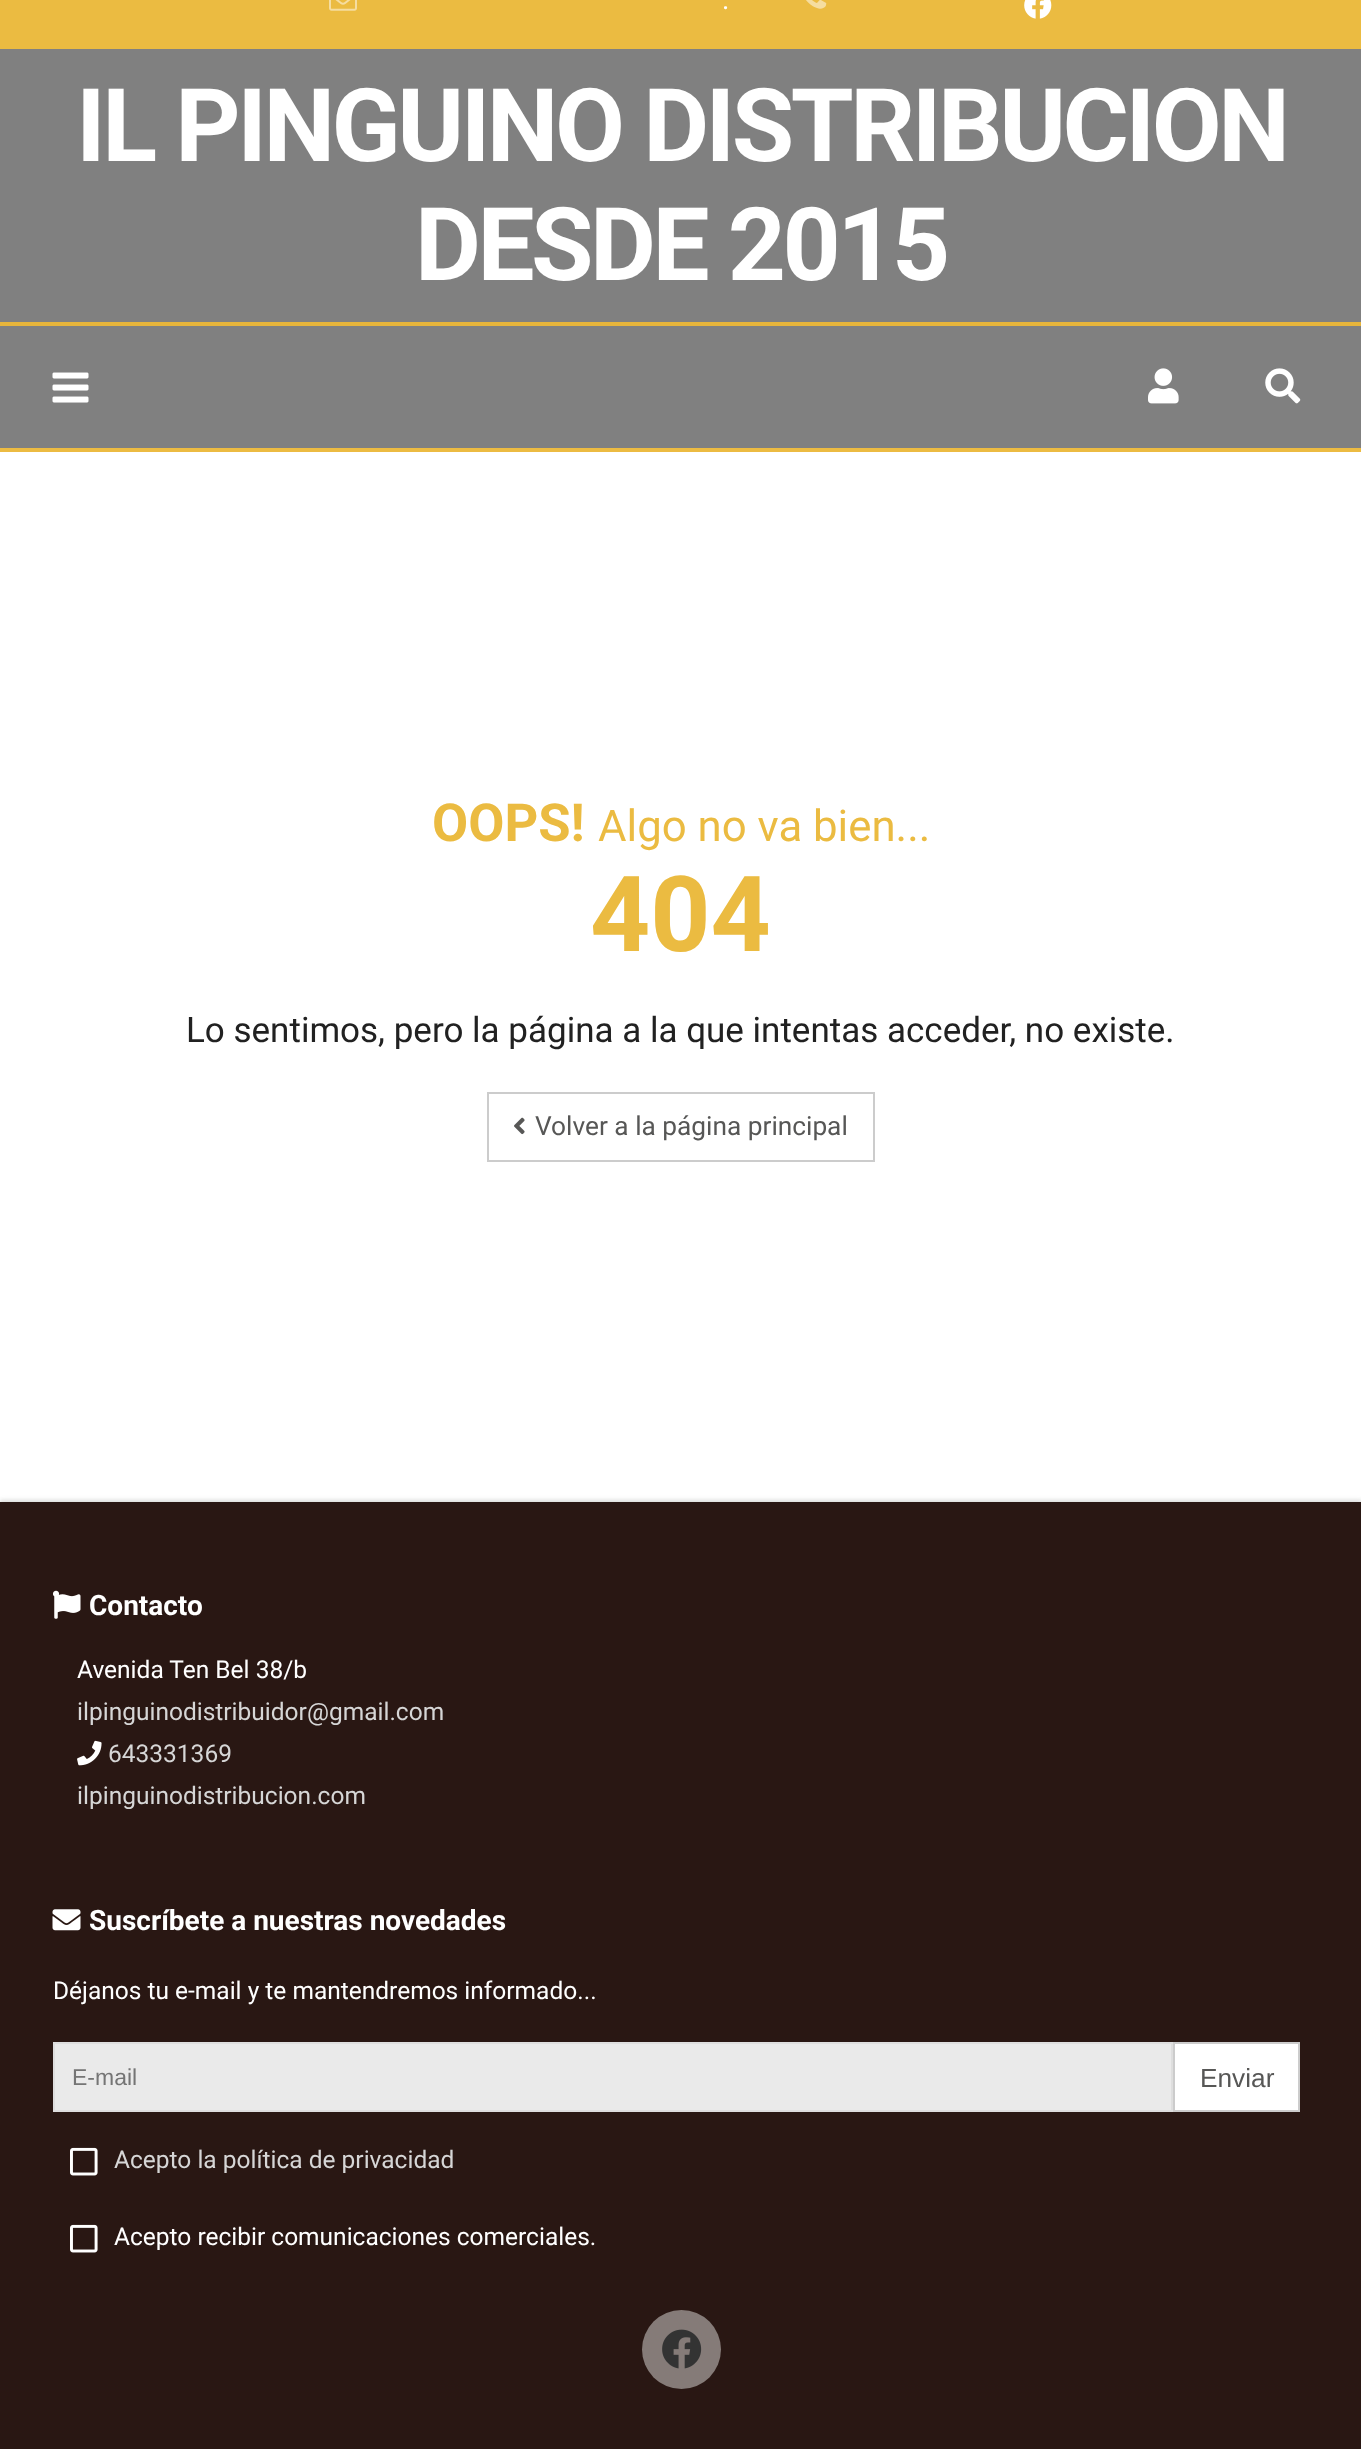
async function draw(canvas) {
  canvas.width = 1361;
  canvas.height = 2449;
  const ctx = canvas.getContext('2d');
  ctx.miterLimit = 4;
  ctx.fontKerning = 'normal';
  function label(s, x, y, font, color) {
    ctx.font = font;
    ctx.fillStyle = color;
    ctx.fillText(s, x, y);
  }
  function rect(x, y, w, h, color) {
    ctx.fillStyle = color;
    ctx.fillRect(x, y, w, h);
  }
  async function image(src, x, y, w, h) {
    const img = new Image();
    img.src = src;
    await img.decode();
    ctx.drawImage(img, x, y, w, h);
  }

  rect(0, 0, 1361, 2449, '#fff');
  rect(0, 49, 1361, 399, '#808080');
  rect(0, 0, 1361, 49, '#ebbb41');
  await image('assets/img1.png', 329, 0, 28, 11);
  label('.', 722, 9, '28px Roboto', '#fff');
  await image('assets/img2.png', 806, 0, 21, 9);
  await image('assets/img3.png', 1024, 0, 28, 19);
  ctx.letterSpacing = '-3.5px';
  label('IL PINGUINO DISTRIBUCION', 76, 161, 'bold 101.5px Roboto', '#fff');
  label('DESDE 2015', 415, 280, 'bold 101.5px Roboto', '#fff');
  rect(0, 322, 1361, 4, '#e7b53b');
  rect(0, 448, 1361, 4, '#ecbb42');
  await image('assets/img4.png', 52, 372, 37, 31);
  await image('assets/img5.png', 1148, 368, 31, 36);
  await image('assets/img6.png', 1265, 368, 36, 36);
  ctx.letterSpacing = '0px';
  label('OOPS!', 432, 841, 'bold 52.5px Roboto', '#ebbb41');
  label('Algo no va bien...', 598, 841, '43.75px Roboto', '#ebbb41');
  label('404', 590, 951, 'bold 105px Roboto', '#ebbb41');
  label('Lo sentimos, pero la página a la que intentas acceder, no existe.', 186, 1042, '35px Roboto', '#212121');
  ctx.strokeStyle = '#ccc';
  ctx.lineWidth = 2;
  ctx.strokeRect(488, 1093, 386, 68);
  await image('assets/img7.png', 514, 1117, 11, 18);
  label('Volver a la página principal', 535, 1135, '26.25px Roboto', '#575756');
  ctx.fillStyle = '#47494833';
  ctx.filter = 'blur(2px)';
  ctx.beginPath();
  ctx.rect(0, 1500, 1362, 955);
  ctx.fill();
  ctx.filter = 'none';
  rect(0, 1502, 1361, 947, '#291713');
  await image('assets/img8.png', 53, 1590, 28, 29);
  label('Contacto', 89, 1615, 'bold 28px Roboto', '#fff');
  label('Avenida Ten Bel 38/b', 77, 1678, '24.5px Roboto', '#fff');
  label('ilpinguinodistribuidor@gmail.com', 77, 1720, '24.5px Roboto', '#d6d6d6');
  await image('assets/img9.png', 77, 1740, 25, 26);
  label('643331369', 108, 1762, '24.5px Roboto', '#d6d6d6');
  label('ilpinguinodistribucion.com', 77, 1804, '24.5px Roboto', '#d6d6d6');
  await image('assets/img10.png', 52, 1909, 29, 22);
  label('Suscríbete a nuestras novedades', 89, 1930, 'bold 28px Roboto', '#fff');
  label('Déjanos tu e-mail y te mantendremos informado...', 53, 1999, '24.5px Roboto', '#fff');
  ctx.fillStyle = '#eaeaea';
  ctx.beginPath();
  ctx.rect(54, 2043, 1118, 68);
  ctx.fill();
  ctx.strokeStyle = '#dedede';
  ctx.stroke();
  label('E-mail', 72, 2085, '23px Liberation Sans', '#757575');
  ctx.fillStyle = '#fff';
  ctx.beginPath();
  ctx.rect(1174, 2043, 125, 68);
  ctx.fill();
  ctx.strokeStyle = '#ccc';
  ctx.stroke();
  label('Enviar', 1200, 2087, '26.25px Liberation Sans', '#575756');
  await image('assets/img11.png', 70, 2147, 28, 29);
  label('Acepto la política de privacidad', 114, 2168, '24.5px Roboto', '#d6d6d6');
  await image('assets/img11.png', 70, 2224, 28, 29);
  label('Acepto recibir comunicaciones comerciales.', 114, 2245, '24.5px Roboto', '#fff');
  ctx.fillStyle = '#857b78';
  ctx.beginPath();
  ctx.arc(681.5, 2349.5, 39.5, 0, 2 * Math.PI);
  ctx.fill();
  await image('assets/img12.png', 662, 2329, 40, 40);
}

draw(document.querySelector('canvas'));
